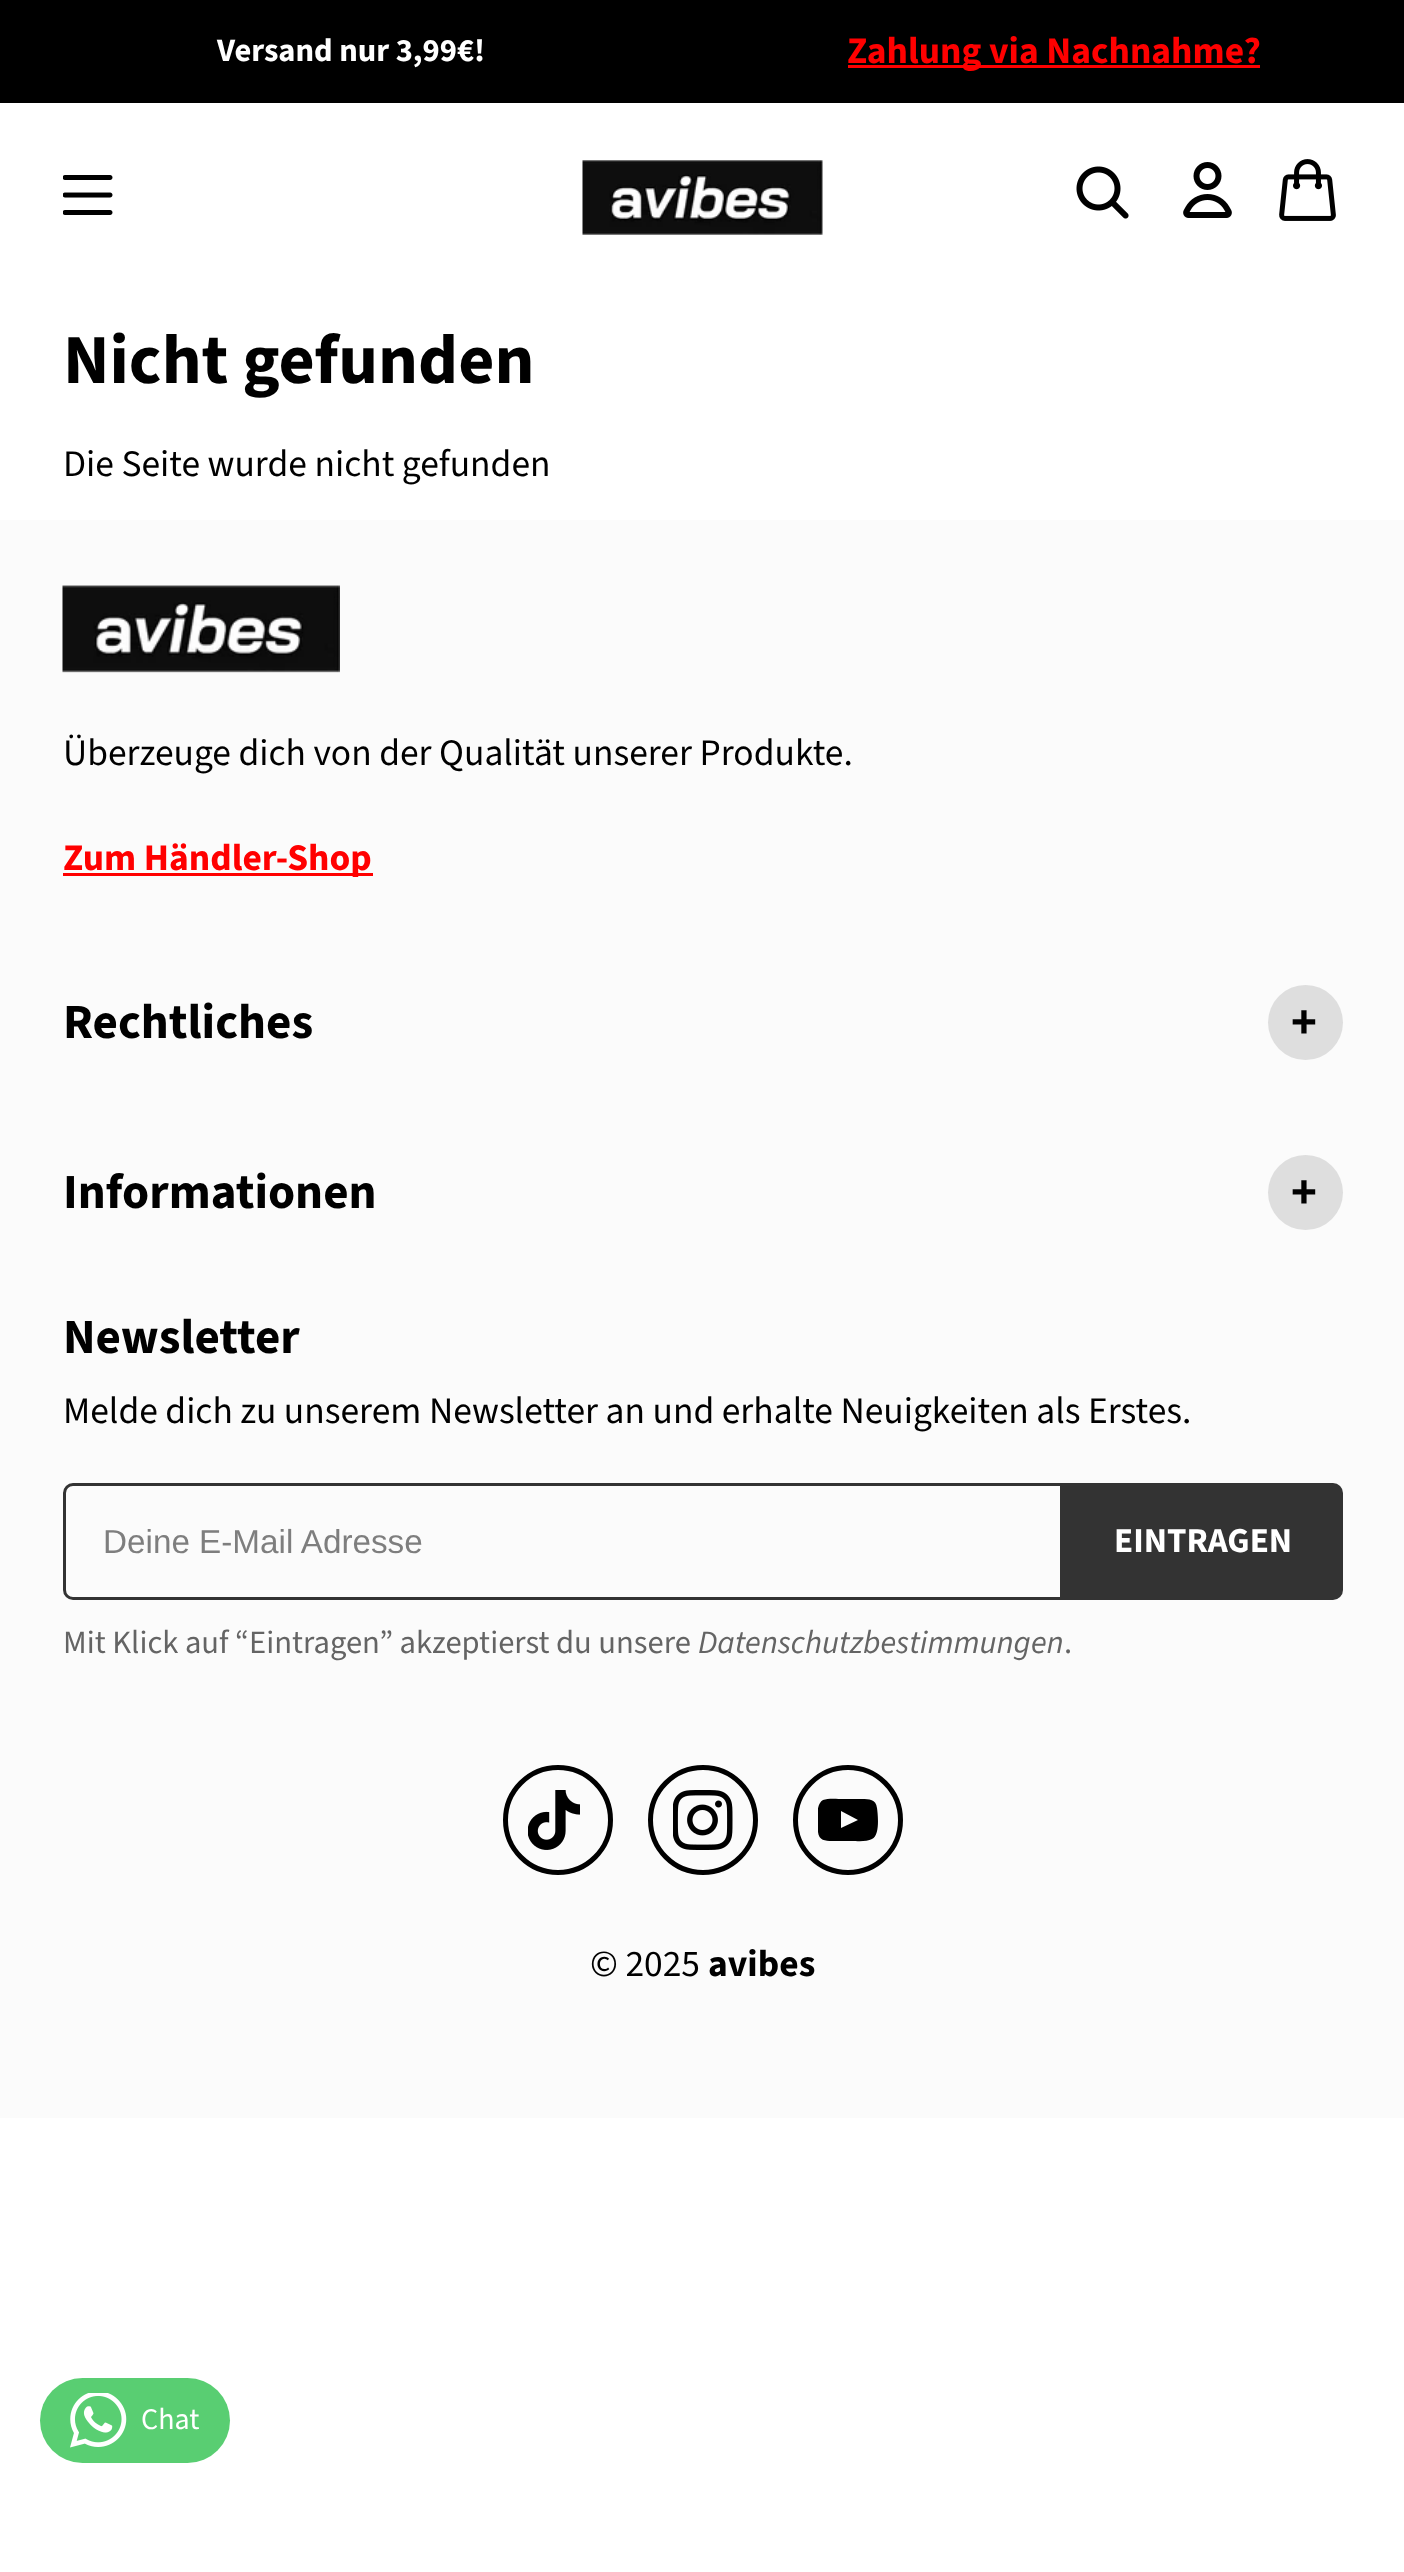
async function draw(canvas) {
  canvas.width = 1404;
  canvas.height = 2572;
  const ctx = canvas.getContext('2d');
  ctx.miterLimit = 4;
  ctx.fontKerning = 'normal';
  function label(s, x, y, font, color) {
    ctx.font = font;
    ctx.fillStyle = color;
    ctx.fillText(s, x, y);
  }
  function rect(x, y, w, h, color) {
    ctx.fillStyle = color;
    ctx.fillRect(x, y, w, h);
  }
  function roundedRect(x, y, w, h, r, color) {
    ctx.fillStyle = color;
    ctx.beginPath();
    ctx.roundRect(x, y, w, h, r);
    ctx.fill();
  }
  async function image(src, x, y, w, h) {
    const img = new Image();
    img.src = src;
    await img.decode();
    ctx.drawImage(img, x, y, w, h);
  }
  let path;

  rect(0, 0, 1404, 2572, '#fff');
  rect(0, 0, 1404, 103, '#000');
  label('Versand nur 3,99€!', 217, 61, 'bold 32.5px Source Sans Pro', '#fff');
  rect(848, 65, 412, 3, '#f00');
  label('Zahlung via Nachnahme?', 847, 63, 'bold 37.5px Source Sans Pro', '#f00');
  await image('assets/img1.png', 63, 175, 50, 40);
  await image('assets/img2.png', 582, 160, 241, 75);
  await image('assets/img3.png', 1076, 166, 53, 53);
  await image('assets/img4.png', 1183, 162, 49, 56);
  await image('assets/img5.png', 1279, 159, 57, 62);
  label('Nicht gefunden', 63, 383, 'bold 70px Source Sans Pro', '#000');
  label('Die Seite wurde nicht gefunden', 63, 476, '37.5px Source Sans Pro', '#000');
  rect(0, 520, 1404, 1598, '#fbfbfb');
  await image('assets/img6.png', 62, 585, 278, 88);
  label('Überzeuge dich von der Qualität unserer Produkte.', 63, 765, '37.5px Source Sans Pro', '#000');
  rect(63, 873, 310, 3, '#f00');
  label('Zum Händler-Shop', 63, 870, 'bold 37.5px Source Sans Pro', '#f00');
  label('Rechtliches', 63, 1038, 'bold 49px Source Sans Pro', '#000');
  ctx.fillStyle = '#dedede';
  ctx.beginPath();
  ctx.arc(1305.5, 1022.5, 37.5, 0, 2 * Math.PI);
  ctx.fill();
  label('+', 1291, 1038, 'bold 49px Source Sans Pro', '#000');
  label('Informationen', 63, 1208, 'bold 49px Source Sans Pro', '#000');
  ctx.fillStyle = '#dedede';
  ctx.beginPath();
  ctx.arc(1305.5, 1192.5, 37.5, 0, 2 * Math.PI);
  ctx.fill();
  label('+', 1291, 1208, 'bold 49px Source Sans Pro', '#000');
  label('Newsletter', 63, 1353, 'bold 49px Source Sans Pro', '#000');
  label('Melde dich zu unserem Newsletter an und erhalte Neuigkeiten als Erstes.', 63, 1423, '37.5px Source Sans Pro', '#000');
  ctx.beginPath();
  ctx.roundRect(64.5, 1484.5, 997, 114, [8.5, 0, 0, 8.5]);
  ctx.strokeStyle = '#333';
  ctx.lineWidth = 3;
  ctx.stroke();
  label('Deine E-Mail Adresse', 103, 1553, '33.25px Liberation Sans', '#7e7e7e');
  ctx.fillStyle = '#333';
  ctx.beginPath();
  ctx.roundRect(1063, 1483, 280, 117, [0, 10, 10, 0]);
  ctx.fill();
  label('EINTRAGEN', 1114, 1552, 'bold 35px Source Sans Pro', '#fff');
  label('Mit Klick auf “Eintragen” akzeptierst du unsere', 63, 1653, '32.6px Source Sans Pro', '#646464');
  label('Datenschutzbestimmungen', 698, 1653, 'italic 32.6px Source Sans Pro', '#646464');
  label('.', 1064, 1653, '32.6px Source Sans Pro', '#646464');
  ctx.beginPath();
  ctx.arc(558, 1820, 52.5, 0, 2 * Math.PI);
  ctx.strokeStyle = '#000';
  ctx.lineWidth = 5;
  ctx.stroke();
  await image('assets/img7.png', 528, 1790, 52, 60);
  ctx.beginPath();
  ctx.arc(703, 1820, 52.5, 0, 2 * Math.PI);
  ctx.stroke();
  await image('assets/img8.png', 673, 1790, 60, 60);
  ctx.beginPath();
  ctx.arc(848, 1820, 52.5, 0, 2 * Math.PI);
  ctx.stroke();
  ctx.save();
  ctx.beginPath();
  ctx.rect(818, 1790, 60, 60);
  ctx.clip();
  ctx.fillStyle = '#000';
  path = new Path2D('M877 1808C876 1799 869 1799 862 1799H843C838 1799 828 1798 823 1800C815 1804 817 1825 818 1832C819 1842 828 1841 836 1841H852C857 1841 867 1842 872 1839C880 1836 878 1815 877 1808ZM841 1828V1811L858 1820Z');
  ctx.fill(path);
  ctx.restore();
  label('© 2025', 590, 1976, '37.5px Source Sans Pro', '#000');
  label('avibes', 708, 1976, 'bold 37.5px Source Sans Pro', '#000');
  roundedRect(40, 2378, 190, 85, 42.5, '#59ce72');
  await image('assets/img9.png', 70, 2393, 57, 55);
  label('Chat', 141, 2429, '30px Source Sans Pro', '#fff');
}

draw(document.querySelector('canvas'));
